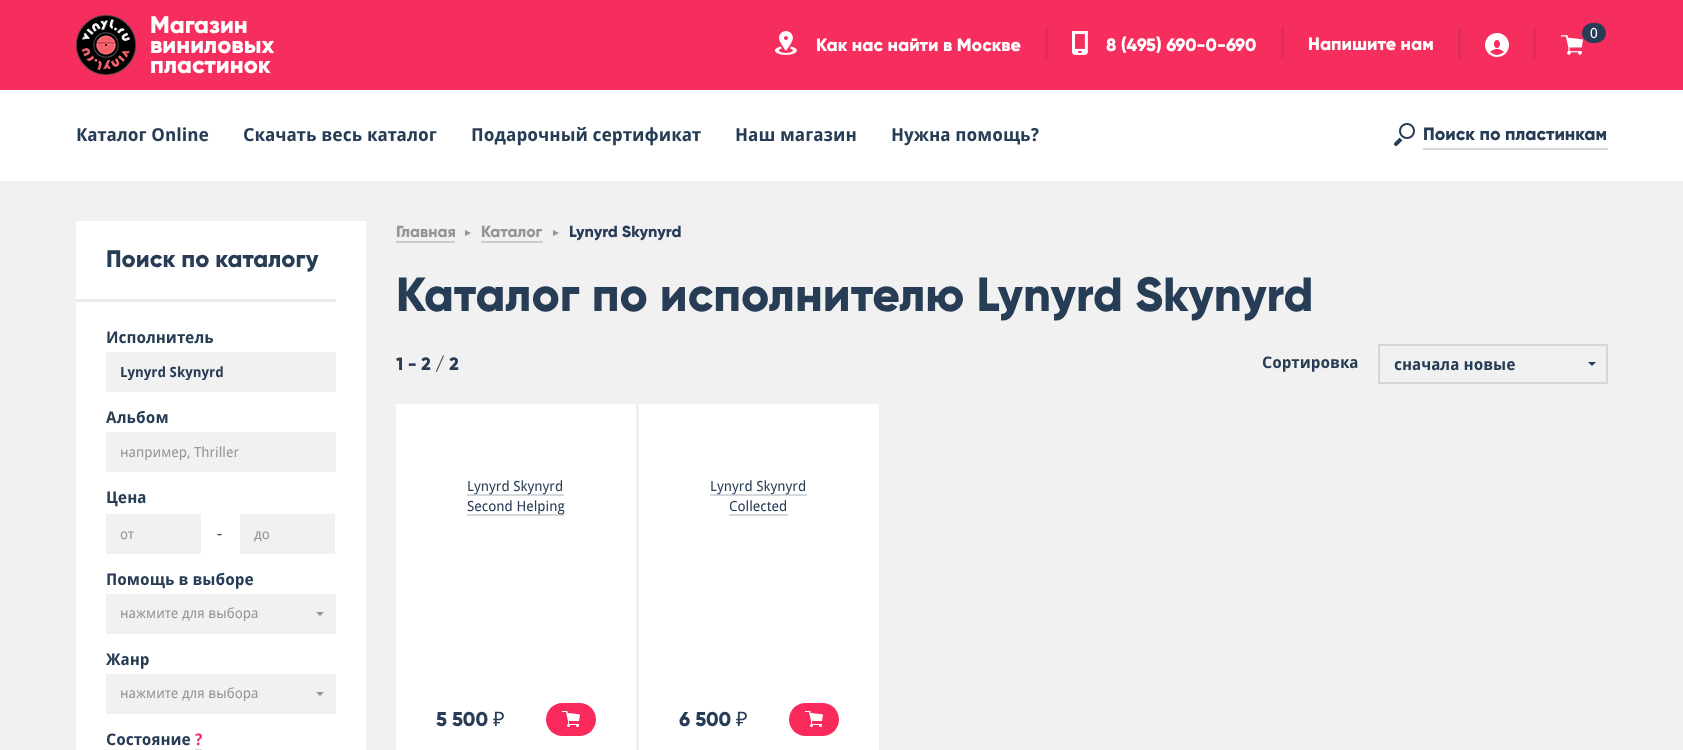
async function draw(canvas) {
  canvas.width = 1683;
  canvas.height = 750;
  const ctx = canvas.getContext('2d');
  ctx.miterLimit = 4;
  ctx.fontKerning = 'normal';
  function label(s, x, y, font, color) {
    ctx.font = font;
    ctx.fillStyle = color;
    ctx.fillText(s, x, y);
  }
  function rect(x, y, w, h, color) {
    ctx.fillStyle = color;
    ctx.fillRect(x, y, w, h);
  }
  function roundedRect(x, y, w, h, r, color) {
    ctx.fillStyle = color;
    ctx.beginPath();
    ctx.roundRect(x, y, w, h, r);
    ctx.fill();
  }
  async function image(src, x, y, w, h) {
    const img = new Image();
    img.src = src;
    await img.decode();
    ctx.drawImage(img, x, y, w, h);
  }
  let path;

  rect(0, 0, 1683, 750, '#f1f1f1');
  rect(0, 0, 1683, 90, '#f62e5e');
  await image('assets/img1.png', 76, 15, 60, 60);
  label('Магазин', 150, 33, '800 24px Gilroy', '#fff');
  label('виниловых', 150, 53, '800 24px Gilroy', '#fff');
  label('пластинок', 150, 73, '800 24px Gilroy', '#fff');
  rect(1533, 27, 3, 32, '#e02d5a');
  await image('assets/img2.png', 1485, 33, 24, 24);
  await image('assets/img3.png', 1561, 35, 22, 20);
  roundedRect(1582, 23, 24, 20, 10, '#273c55');
  label('0', 1590, 38, '14px Droid Sans', '#fff');
  rect(1045, 27, 3, 32, '#e02d5a');
  await image('assets/img4.png', 775, 31, 22, 24);
  label('Как нас найти в Москве', 816, 51, '800 18px Gilroy', '#fff');
  rect(1281, 27, 3, 32, '#e02d5a');
  await image('assets/img5.png', 1072, 31, 16, 24);
  label('8 (495) 690-0-690', 1106, 51, '800 18px Gilroy', '#fff');
  rect(1458, 27, 3, 32, '#e02d5a');
  label('Напишите нам', 1308, 50, '800 18px Gilroy', '#fff');
  rect(0, 90, 1683, 91, '#fff');
  label('Каталог Online', 76, 141, 'bold 18px Droid Sans', '#273c55');
  label('Скачать весь каталог', 243, 141, 'bold 18px Droid Sans', '#273c55');
  label('Подарочный сертификат', 471, 141, 'bold 18px Droid Sans', '#273c55');
  label('Наш магазин', 735, 141, 'bold 18px Droid Sans', '#273c55');
  label('Нужна помощь?', 891, 141, 'bold 18px Droid Sans', '#273c55');
  await image('assets/img6.png', 1394, 123, 21, 23);
  rect(1423, 148, 185, 2, '#d4d8dd');
  label('Поиск по пластинкам', 1423, 140, '800 18px Gilroy', '#273c55');
  rect(76, 221, 290, 529, '#fff');
  label('Поиск по каталогу', 106, 267, '800 24px Gilroy', '#273c55');
  rect(76, 299, 260, 3, '#e7e9ea');
  label('Исполнитель', 106, 343, 'bold 16px Droid Sans', '#273c55');
  rect(106, 352, 230, 40, '#f1f1f1');
  ctx.save();
  ctx.beginPath();
  ctx.rect(120, 364, 202, 16);
  ctx.clip();
  label('Lynyrd Skynyrd', 120, 377, 'bold 14px Droid Sans', '#273c55');
  ctx.restore();
  label('Альбом', 106, 423, 'bold 16px Droid Sans', '#273c55');
  rect(106, 432, 230, 40, '#f1f1f1');
  ctx.save();
  ctx.beginPath();
  ctx.rect(120, 444, 202, 16);
  ctx.clip();
  label('например, Thriller', 120, 457, '14px Droid Sans', '#969696');
  ctx.restore();
  label('Цена', 106, 503, 'bold 16px Droid Sans', '#273c55');
  rect(106, 514, 95, 40, '#f1f1f1');
  label('от', 120, 539, '14px Droid Sans', '#969696');
  label('-', 217, 539, '16px Droid Serif', '#273c55');
  rect(240, 514, 95, 40, '#f1f1f1');
  ctx.save();
  ctx.beginPath();
  ctx.rect(254, 526, 67, 16);
  ctx.clip();
  label('до', 254, 539, '14px Droid Sans', '#969696');
  ctx.restore();
  label('Помощь в выборе', 106, 585, 'bold 16px Droid Sans', '#273c55');
  rect(106, 594, 230, 40, '#f1f1f1');
  label('нажмите для выбора', 120, 618, '14px Droid Sans', '#969696');
  path = new Path2D('M316 612H324L320 616Z');
  ctx.fill(path);
  label('Жанр', 106, 665, 'bold 16px Droid Sans', '#273c55');
  rect(106, 674, 230, 40, '#f1f1f1');
  label('нажмите для выбора', 120, 698, '14px Droid Sans', '#969696');
  path = new Path2D('M316 692H324L320 696Z');
  ctx.fill(path);
  label('Состояние', 106, 745, 'bold 16px Droid Sans', '#273c55');
  label('?', 195, 745, 'bold 16px Droid Sans', '#f62e5e');
  rect(195, 749, 7, 1, '#d4d8dd');
  label('Главная', 396, 237, '800 16px Gilroy', '#969696');
  rect(396, 241, 59, 2, '#c9cdd2');
  ctx.fillStyle = '#969696';
  path = new Path2D('M465 236V230L471 233Z');
  ctx.fill(path);
  label('Каталог', 481, 237, '800 16px Gilroy', '#969696');
  rect(481, 241, 62, 2, '#c9cdd2');
  ctx.fillStyle = '#969696';
  path = new Path2D('M553 236V230L559 233Z');
  ctx.fill(path);
  label('Lynyrd Skynyrd', 569, 237, '800 16px Gilroy', '#273c55');
  label('Каталог по исполнителю Lynyrd Skynyrd', 396, 311, '800 48px Gilroy', '#273c55');
  label('1 - 2 / 2', 396, 370, '800 18px Gilroy', '#273c55');
  label('Сортировка', 1262, 368, 'bold 16px Droid Sans', '#273c55');
  ctx.strokeStyle = '#d4d7d8';
  ctx.lineWidth = 2;
  ctx.strokeRect(1379, 345, 228, 38);
  label('сначала новые', 1394, 370, 'bold 16px Droid Sans', '#273c55');
  path = new Path2D('M1588 362H1596L1592 366Z');
  ctx.fill(path);
  rect(396, 404, 240, 346, '#fff');
  rect(467, 494, 97, 2, '#d4d8dd');
  label('Lynyrd Skynyrd', 467, 491, '14px Droid Sans', '#273c55');
  rect(467, 514, 97, 2, '#d4d8dd');
  label('Second Helping', 467, 511, '14px Droid Sans', '#273c55');
  label('5 500', 436, 726, '800 20px Gilroy', '#273c55');
  label('₽', 493, 726, '20px Noto Sans', '#273c55');
  roundedRect(546, 703, 50, 33, 16.5, '#f9295b');
  await image('assets/img7.png', 562, 711, 18, 16);
  rect(639, 404, 240, 346, '#fff');
  rect(710, 494, 97, 2, '#d4d8dd');
  label('Lynyrd Skynyrd', 710, 491, '14px Droid Sans', '#273c55');
  label('Collected', 729, 511, '14px Droid Sans', '#273c55');
  rect(729, 514, 59, 2, '#d4d8dd');
  label('6 500', 679, 726, '800 20px Gilroy', '#273c55');
  label('₽', 736, 726, '20px Noto Sans', '#273c55');
  roundedRect(789, 703, 50, 33, 16.5, '#f9295b');
  await image('assets/img7.png', 805, 711, 18, 16);
}

draw(document.querySelector('canvas'));
